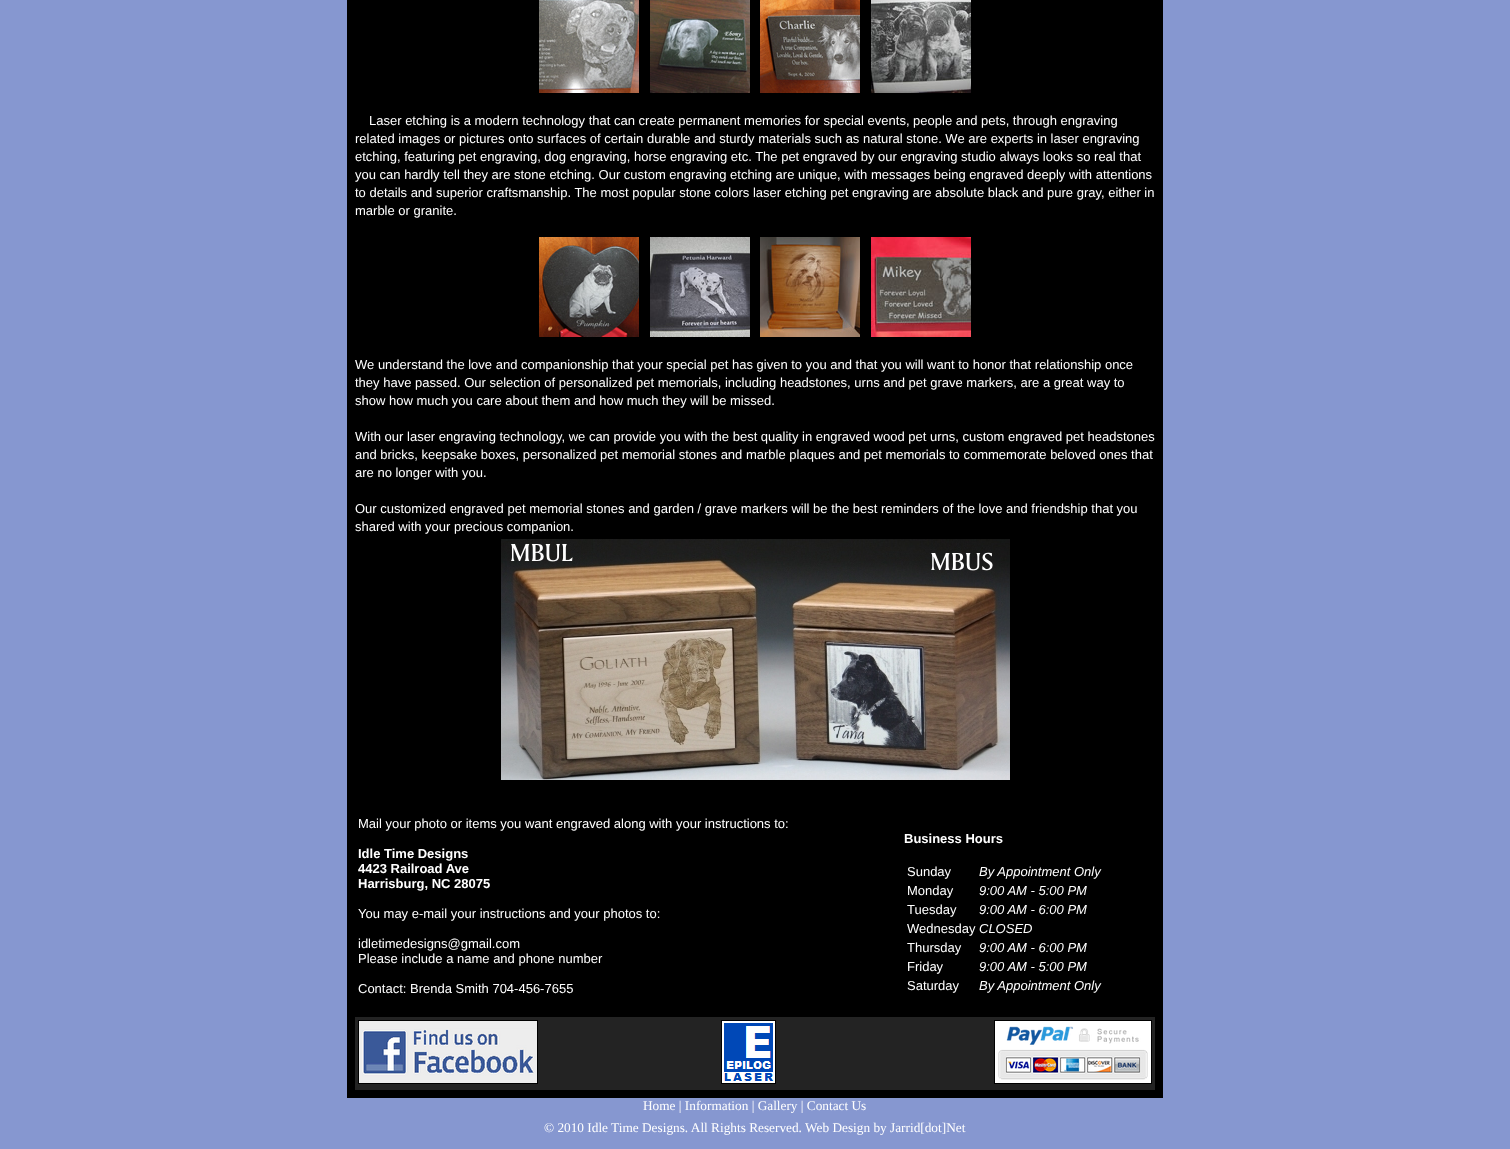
async function draw(canvas) {
  canvas.width = 1510;
  canvas.height = 1149;
  const ctx = canvas.getContext('2d');
  ctx.miterLimit = 4;
  ctx.fontKerning = 'normal';
  function label(s, x, y, font, color) {
    ctx.font = font;
    ctx.fillStyle = color;
    ctx.fillText(s, x, y);
  }
  function rect(x, y, w, h, color) {
    ctx.fillStyle = color;
    ctx.fillRect(x, y, w, h);
  }
  async function image(src, x, y, w, h) {
    const img = new Image();
    img.src = src;
    await img.decode();
    ctx.drawImage(img, x, y, w, h);
  }

  rect(0, 0, 1510, 1149, '#8697d0');
  rect(347, 0, 816, 1098, '#000');
  await image('assets/img1.png', 539, 0, 100, 93);
  await image('assets/img2.png', 650, 0, 100, 93);
  await image('assets/img3.png', 760, 0, 100, 93);
  await image('assets/img4.png', 871, 0, 100, 93);
  label('Laser etching is a modern technology that can create permanent memories for special events, people and pets, through engraving', 369, 125, '13px Liberation Sans', '#fff');
  label('related images or pictures onto surfaces of certain durable and sturdy materials such as natural stone. We are experts in laser engraving', 355, 143, '13px Liberation Sans', '#fff');
  label('etching, featuring pet engraving, dog engraving, horse engraving etc. The pet engraved by our engraving studio always looks so real that', 355, 161, '13px Liberation Sans', '#fff');
  label('you can hardly tell they are stone etching. Our custom engraving etching are unique, with messages being engraved deeply with attentions', 355, 179, '13px Liberation Sans', '#fff');
  label('to details and superior craftsmanship. The most popular stone colors laser etching pet engraving are absolute black and pure gray, either in', 355, 197, '13px Liberation Sans', '#fff');
  label('marble or granite.', 355, 215, '13px Liberation Sans', '#fff');
  await image('assets/img5.png', 539, 237, 100, 100);
  await image('assets/img6.png', 650, 237, 100, 100);
  await image('assets/img7.png', 760, 237, 100, 100);
  await image('assets/img8.png', 871, 237, 100, 100);
  label('We understand the love and companionship that your special pet has given to you and that you will want to honor that relationship once', 355, 369, '13px Liberation Sans', '#fff');
  label('they have passed. Our selection of personalized pet memorials, including headstones, urns and pet grave markers, are a great way to', 355, 387, '13px Liberation Sans', '#fff');
  label('show how much you care about them and how much they will be missed.', 355, 405, '13px Liberation Sans', '#fff');
  label('With our laser engraving technology, we can provide you with the best quality in engraved wood pet urns, custom engraved pet headstones', 355, 441, '13px Liberation Sans', '#fff');
  label('and bricks, keepsake boxes, personalized pet memorial stones and marble plaques and pet memorials to commemorate beloved ones that', 355, 459, '13px Liberation Sans', '#fff');
  label('are no longer with you.', 355, 477, '13px Liberation Sans', '#fff');
  label('Our customized engraved pet memorial stones and garden / grave markers will be the best reminders of the love and friendship that you', 355, 513, '13px Liberation Sans', '#fff');
  label('shared with your precious companion.', 355, 531, '13px Liberation Sans', '#fff');
  await image('assets/img9.png', 501, 539, 509, 241);
  label('Mail your photo or items you want engraved along with your instructions to:', 358, 828, '13px Liberation Sans', '#fff');
  label('Idle Time Designs', 358, 858, 'bold 13px Liberation Sans', '#fff');
  label('4423 Railroad Ave', 358, 873, 'bold 13px Liberation Sans', '#fff');
  label('Harrisburg, NC 28075', 358, 888, 'bold 13px Liberation Sans', '#fff');
  label('You may e-mail your instructions and your photos to:', 358, 918, '13px Liberation Sans', '#fff');
  label('idletimedesigns@gmail.com', 358, 948, '13px Liberation Sans', '#fff');
  label('Please include a name and phone number', 358, 963, '13px Liberation Sans', '#fff');
  label('Contact: Brenda Smith 704-456-7655', 358, 993, '13px Liberation Sans', '#fff');
  label('Business Hours', 904, 843, 'bold 13px Liberation Sans', '#fff');
  label('Sunday', 907, 876, '13px Liberation Sans', '#fff');
  label('By Appointment Only', 979, 876, 'italic 13px Liberation Sans', '#fff');
  label('Monday', 907, 895, '13px Liberation Sans', '#fff');
  label('9:00 AM - 5:00 PM', 979, 895, 'italic 13px Liberation Sans', '#fff');
  label('Tuesday', 907, 914, '13px Liberation Sans', '#fff');
  label('9:00 AM - 6:00 PM', 979, 914, 'italic 13px Liberation Sans', '#fff');
  label('Wednesday', 907, 933, '13px Liberation Sans', '#fff');
  label('CLOSED', 979, 933, 'italic 13px Liberation Sans', '#fff');
  label('Thursday', 907, 952, '13px Liberation Sans', '#fff');
  label('9:00 AM - 6:00 PM', 979, 952, 'italic 13px Liberation Sans', '#fff');
  label('Friday', 907, 971, '13px Liberation Sans', '#fff');
  label('9:00 AM - 5:00 PM', 979, 971, 'italic 13px Liberation Sans', '#fff');
  label('Saturday', 907, 990, '13px Liberation Sans', '#fff');
  label('By Appointment Only', 979, 990, 'italic 13px Liberation Sans', '#fff');
  rect(355, 1017, 800, 73, '#232323');
  await image('assets/img10.png', 358, 1020, 180, 64);
  await image('assets/img11.png', 721, 1020, 55, 64);
  await image('assets/img12.png', 994, 1020, 158, 64);
  label('Home | Information | Gallery | Contact Us', 643, 1110, '13.3px Liberation Serif', '#fff');
  label('© 2010 Idle Time Designs. All Rights Reserved. Web Design by Jarrid[dot]Net', 544, 1132, '13.3px Liberation Serif', '#fff');
}

draw(document.querySelector('canvas'));
